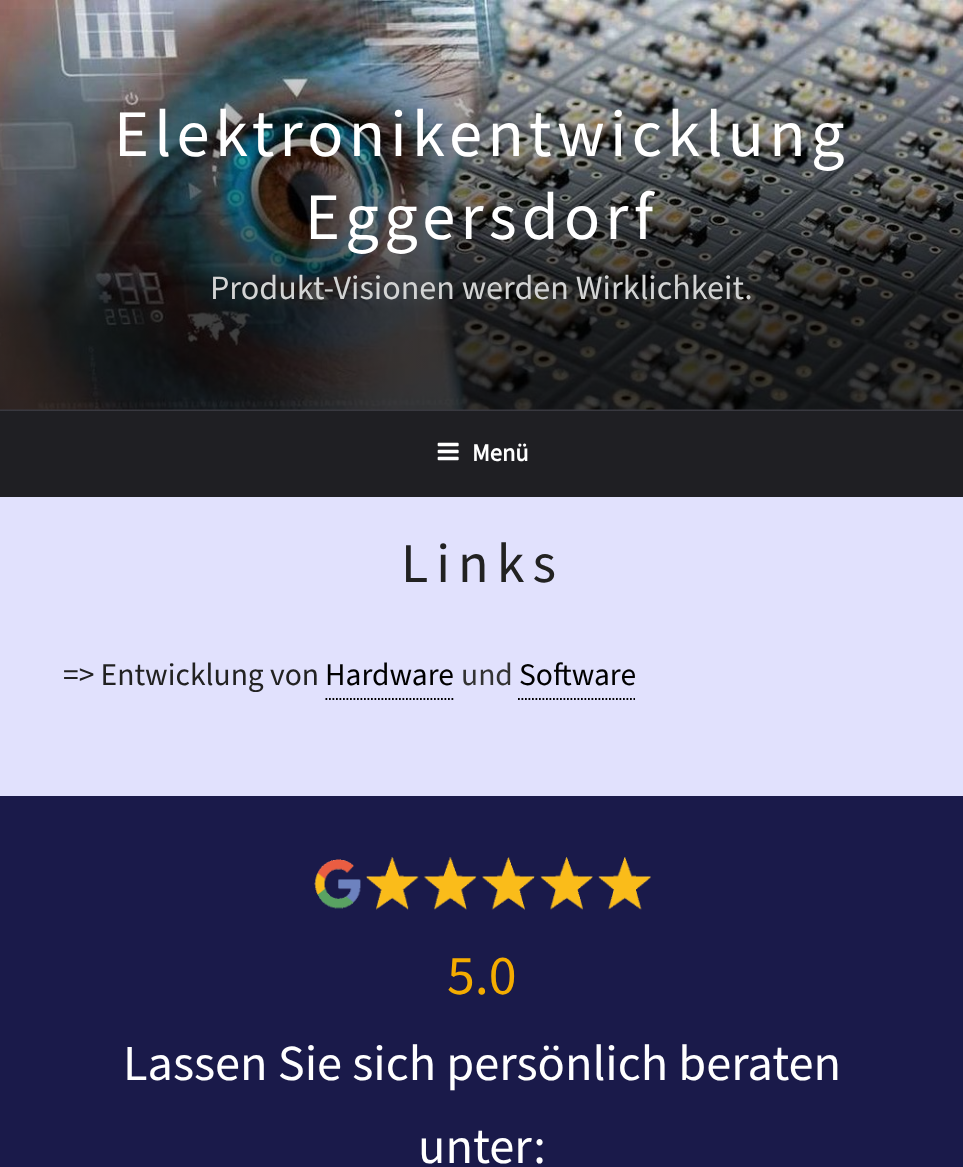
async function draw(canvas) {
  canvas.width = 963;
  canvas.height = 1167;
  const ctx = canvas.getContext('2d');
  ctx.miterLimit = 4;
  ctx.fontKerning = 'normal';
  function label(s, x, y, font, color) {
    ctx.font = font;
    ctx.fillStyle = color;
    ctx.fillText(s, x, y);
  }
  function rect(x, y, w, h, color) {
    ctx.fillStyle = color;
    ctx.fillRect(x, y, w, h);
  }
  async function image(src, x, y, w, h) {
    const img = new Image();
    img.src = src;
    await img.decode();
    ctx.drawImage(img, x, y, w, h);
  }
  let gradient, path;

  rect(0, 0, 963, 1167, '#e1e1fd');
  await image('assets/img1.png', 0, 0, 963, 410);
  gradient = ctx.createLinearGradient(482, 0, 482, 411);
  gradient.addColorStop(0, '#00000000');
  gradient.addColorStop(0.75, '#000000bf');
  gradient.addColorStop(1, '#000000bf');
  ctx.fillStyle = gradient;
  ctx.fillRect(0, 9, 963, 402);
  ctx.letterSpacing = '5.3px';
  label('Elektronikentwicklung', 114, 156, '66.5px Source Sans Pro', '#fff');
  label('Eggersdorf', 305, 239, '66.5px Source Sans Pro', '#fff');
  ctx.letterSpacing = '0px';
  label('Produkt-Visionen werden Wirklichkeit.', 210, 299, '34.1px Source Sans Pro', '#d3d4d4');
  rect(0, 411, 963, 86, '#1f1f23');
  await image('assets/img2.png', 437, 442, 22, 19);
  label('Menü', 472, 461, 'bold 24.5px Source Sans Pro', '#fff');
  ctx.letterSpacing = '8px';
  label('Links', 401, 582, '56px Source Sans Pro', '#222');
  ctx.letterSpacing = '0px';
  label('=> Entwicklung von', 63, 685, '31.5px Source Sans Pro', '#222');
  label('Hardware', 325, 685, '31.5px Source Sans Pro', '#000');
  path = new Path2D('M325.5 699H455');
  ctx.strokeStyle = '#000';
  ctx.lineWidth = 1.8;
  ctx.setLineDash([1.75, 1.75]);
  ctx.stroke(path);
  label('und', 461, 685, '31.5px Source Sans Pro', '#333');
  label('Software', 519, 685, '31.5px Source Sans Pro', '#000');
  path = new Path2D('M518 699H635');
  ctx.stroke(path);
  rect(0, 796, 963, 371, '#1a1a4a');
  await image('assets/img3.png', 314, 857, 337, 53);
  label('5.0', 447, 994, '56px Source Sans Pro', '#f4ac00');
  label('Lassen Sie sich persönlich beraten', 123, 1080, '50.4px Source Sans Pro', '#fff');
  label('unter:', 418, 1163, '50.4px Source Sans Pro', '#fff');
}

draw(document.querySelector('canvas'));
